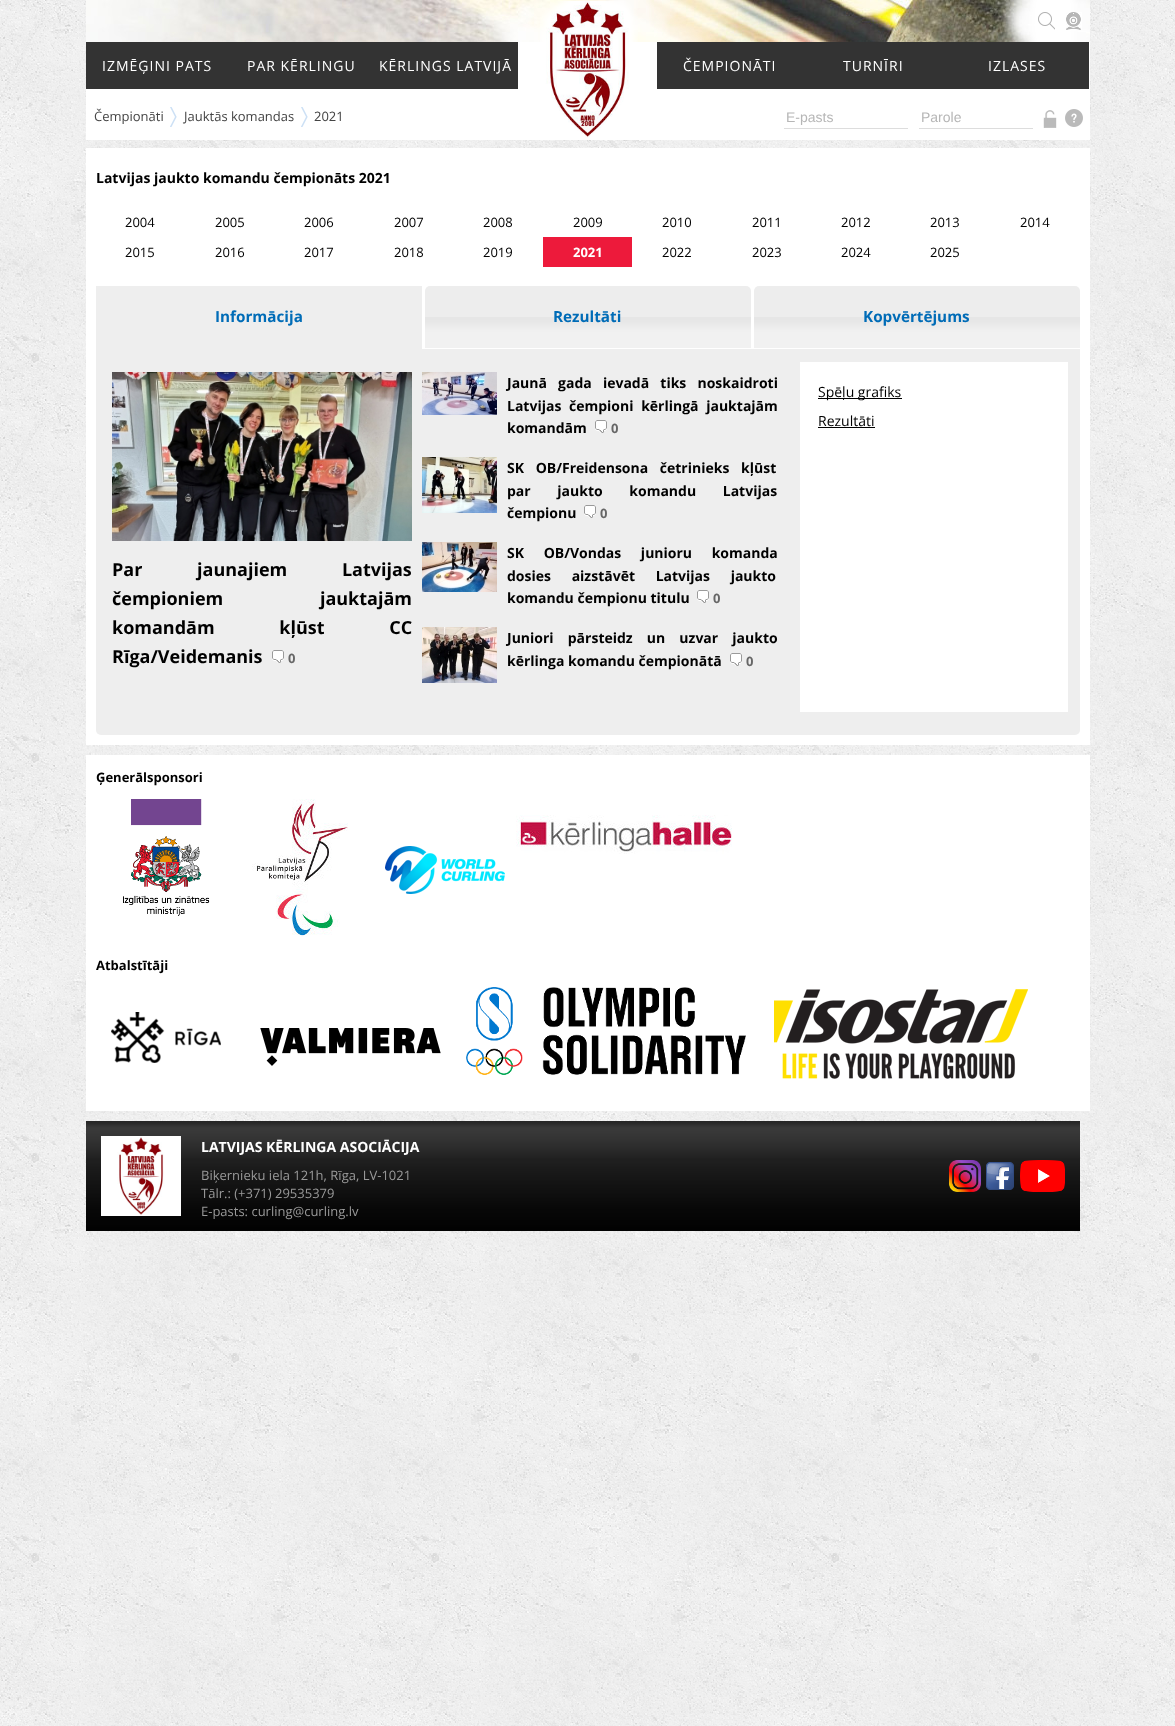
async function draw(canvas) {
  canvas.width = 1175;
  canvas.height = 1726;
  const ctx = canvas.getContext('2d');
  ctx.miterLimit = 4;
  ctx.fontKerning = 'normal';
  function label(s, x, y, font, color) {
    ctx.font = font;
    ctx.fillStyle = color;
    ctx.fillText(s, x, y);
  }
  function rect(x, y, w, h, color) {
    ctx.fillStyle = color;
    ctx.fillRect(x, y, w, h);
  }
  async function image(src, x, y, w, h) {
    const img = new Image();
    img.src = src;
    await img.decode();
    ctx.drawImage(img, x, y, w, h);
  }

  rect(0, 0, 1175, 1726, '#fff');
  await image('assets/img1.png', 0, 1231, 1175, 495);
  await image('assets/img2.png', 0, 0, 1175, 1231);
  rect(86, 42, 1004, 98, '#fff');
  await image('assets/img3.png', 86, 0, 1004, 42);
  await image('assets/img4.png', 540, 1, 98, 137);
  ctx.filter = 'blur(4px)';
  ctx.beginPath();
  ctx.rect(1032, -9, 42, 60);
  ctx.fill();
  ctx.filter = 'none';
  await image('assets/img5.png', 1038, 12, 17, 18);
  rect(1078, 12, 4, 17, '#fff');
  await image('assets/img6.png', 1066, 12, 15, 18);
  rect(86, 42, 432, 47, '#333');
  ctx.letterSpacing = '1px';
  label('IZMĒĢINI PATS', 102, 71, '14px Open Sans', '#fff');
  label('PAR KĒRLINGU', 247, 71, '14px Open Sans', '#fff');
  label('KĒRLINGS LATVIJĀ', 379, 71, '14px Open Sans', '#fff');
  rect(657, 42, 432, 47, '#333');
  label('ČEMPIONĀTI', 683, 71, '14px Open Sans', '#fff');
  label('TURNĪRI', 843, 71, '14px Open Sans', '#fff');
  label('IZLASES', 988, 71, '14px Open Sans', '#fff');
  ctx.letterSpacing = '0px';
  label('Čempionāti', 94, 121, '13px Open Sans', '#444');
  await image('assets/img7.png', 170, 107, 7, 20);
  label('Jauktās komandas', 184, 121, '13px Open Sans', '#444');
  await image('assets/img7.png', 301, 107, 7, 20);
  label('2021', 314, 121, '13px Open Sans', '#444');
  rect(784, 128, 124, 1, '#ddd');
  label('E-pasts', 786, 122, '14px Liberation Sans', '#b6b6b6');
  rect(919, 128, 114, 1, '#ddd');
  label('Parole', 921, 122, '14px Liberation Sans', '#b6b6b6');
  await image('assets/img8.png', 1043, 110, 14, 18);
  await image('assets/img9.png', 1065, 109, 18, 18);
  rect(86, 148, 1004, 597, '#fff');
  label('Latvijas jaukto komandu čempionāts 2021', 96, 183, 'bold 14px Open Sans', '#000');
  label('2004', 125, 227, '13px Open Sans', '#000');
  label('2005', 215, 227, '13px Open Sans', '#000');
  label('2006', 304, 227, '13px Open Sans', '#000');
  label('2007', 394, 227, '13px Open Sans', '#000');
  label('2008', 483, 227, '13px Open Sans', '#000');
  label('2009', 573, 227, '13px Open Sans', '#000');
  label('2010', 662, 227, '13px Open Sans', '#000');
  label('2011', 752, 227, '13px Open Sans', '#000');
  label('2012', 841, 227, '13px Open Sans', '#000');
  label('2013', 930, 227, '13px Open Sans', '#000');
  label('2014', 1020, 227, '13px Open Sans', '#000');
  label('2015', 125, 257, '13px Open Sans', '#000');
  label('2016', 215, 257, '13px Open Sans', '#000');
  label('2017', 304, 257, '13px Open Sans', '#000');
  label('2018', 394, 257, '13px Open Sans', '#000');
  label('2019', 483, 257, '13px Open Sans', '#000');
  rect(543, 237, 89, 30, '#ed1a3b');
  label('2021', 573, 257, 'bold 13px Open Sans', '#fff');
  label('2022', 662, 257, '13px Open Sans', '#000');
  label('2023', 752, 257, '13px Open Sans', '#000');
  label('2024', 841, 257, '13px Open Sans', '#000');
  label('2025', 930, 257, '13px Open Sans', '#000');
  rect(96, 286, 326, 63, '#eee');
  label('Informācija', 215, 322, 'bold 15.25px Open Sans', '#006cb7');
  await image('assets/img10.png', 425, 286, 326, 62);
  label('Rezultāti', 553, 322, 'bold 15.25px Open Sans', '#006cb7');
  await image('assets/img10.png', 754, 286, 326, 62);
  label('Kopvērtējums', 863, 322, 'bold 15.25px Open Sans', '#006cb7');
  ctx.fillStyle = '#eee';
  ctx.beginPath();
  ctx.roundRect(96, 349, 984, 386, [0, 0, 5, 5]);
  ctx.fill();
  await image('assets/img11.png', 422, 372, 75, 43);
  ctx.wordSpacing = '7.5px';
  label('Jaunā gada ievadā tiks noskaidroti', 507, 388, 'bold 14px Open Sans', '#000');
  ctx.wordSpacing = '4px';
  label('Latvijas čempioni kērlingā jauktajām', 507, 411, 'bold 14px Open Sans', '#000');
  ctx.wordSpacing = '0px';
  label('komandām', 507, 433, 'bold 14px Open Sans', '#000');
  await image('assets/img12.png', 595, 420, 12, 13);
  label('0', 611, 433, 'bold 13px Open Sans', '#666');
  await image('assets/img13.png', 422, 457, 75, 56);
  ctx.wordSpacing = '8px';
  label('SK OB/Freidensona četrinieks kļūst', 507, 473, 'bold 14px Open Sans', '#000');
  ctx.wordSpacing = '23px';
  label('par jaukto komandu Latvijas', 507, 496, 'bold 14px Open Sans', '#000');
  ctx.wordSpacing = '0px';
  label('čempionu', 507, 518, 'bold 14px Open Sans', '#000');
  await image('assets/img12.png', 584, 505, 12, 13);
  label('0', 600, 518, 'bold 13px Open Sans', '#666');
  await image('assets/img14.png', 422, 542, 75, 50);
  ctx.wordSpacing = '16px';
  label('SK OB/Vondas junioru komanda', 507, 558, 'bold 14px Open Sans', '#000');
  ctx.wordSpacing = '17px';
  label('dosies aizstāvēt Latvijas jaukto', 507, 581, 'bold 14px Open Sans', '#000');
  ctx.wordSpacing = '0px';
  label('komandu čempionu titulu', 507, 603, 'bold 14px Open Sans', '#000');
  await image('assets/img12.png', 697, 590, 12, 13);
  label('0', 713, 603, 'bold 13px Open Sans', '#666');
  await image('assets/img15.png', 422, 627, 75, 56);
  ctx.wordSpacing = '10.5px';
  label('Juniori pārsteidz un uzvar jaukto', 507, 643, 'bold 14px Open Sans', '#000');
  ctx.wordSpacing = '0px';
  label('kērlinga komandu čempionātā', 507, 666, 'bold 14px Open Sans', '#000');
  await image('assets/img12.png', 730, 653, 12, 13);
  label('0', 746, 666, 'bold 13px Open Sans', '#666');
  rect(800, 362, 268, 350, '#fff');
  rect(818, 398, 84, 1, '#000');
  label('Spēļu grafiks', 818, 397, '14px Open Sans', '#000');
  label('Rezultāti', 818, 426, '14px Open Sans', '#000');
  rect(818, 427, 57, 1, '#000');
  await image('assets/img16.png', 112, 372, 300, 169);
  ctx.wordSpacing = '50px';
  label('Par jaunajiem Latvijas', 112, 576, 'bold 18px Open Sans', '#000');
  ctx.wordSpacing = '92px';
  label('čempioniem jauktajām', 112, 605, 'bold 18px Open Sans', '#000');
  ctx.wordSpacing = '60px';
  label('komandām kļūst CC', 112, 634, 'bold 18px Open Sans', '#000');
  ctx.wordSpacing = '0px';
  label('Rīga/Veidemanis', 112, 663, 'bold 18px Open Sans', '#000');
  await image('assets/img12.png', 272, 650, 12, 13);
  label('0', 288, 663, 'bold 13px Open Sans', '#666');
  rect(86, 755, 1004, 356, '#fff');
  label('Ģenerālsponsori', 96, 782, 'bold 13px Open Sans', '#000');
  await image('assets/img17.png', 123, 799, 87, 117);
  await image('assets/img18.png', 252, 799, 96, 138);
  await image('assets/img19.png', 516, 815, 216, 39);
  await image('assets/img20.png', 385, 846, 120, 48);
  label('Atbalstītāji', 96, 970, 'bold 13px Open Sans', '#000');
  await image('assets/img21.png', 111, 1012, 110, 51);
  await image('assets/img22.png', 260, 1028, 181, 38);
  await image('assets/img23.png', 466, 987, 280, 88);
  await image('assets/img24.png', 774, 989, 254, 90);
  await image('assets/img25.png', 86, 1121, 994, 110);
  await image('assets/img26.png', 101, 1136, 80, 80);
  label('LATVIJAS KĒRLINGA ASOCIĀCIJA', 201, 1152, 'bold 14px Open Sans', '#fff');
  label('Biķernieku iela 121h, Rīga, LV-1021', 201, 1180, '13px Open Sans', '#999');
  label('Tālr.: (+371) 29535379', 201, 1198, '13px Open Sans', '#999');
  label('E-pasts: curling@curling.lv', 201, 1216, '13px Open Sans', '#999');
  await image('assets/img27.png', 949, 1160, 32, 32);
  await image('assets/img28.png', 986, 1162, 28, 28);
  await image('assets/img29.png', 1020, 1160, 45, 32);
}

draw(document.querySelector('canvas'));
